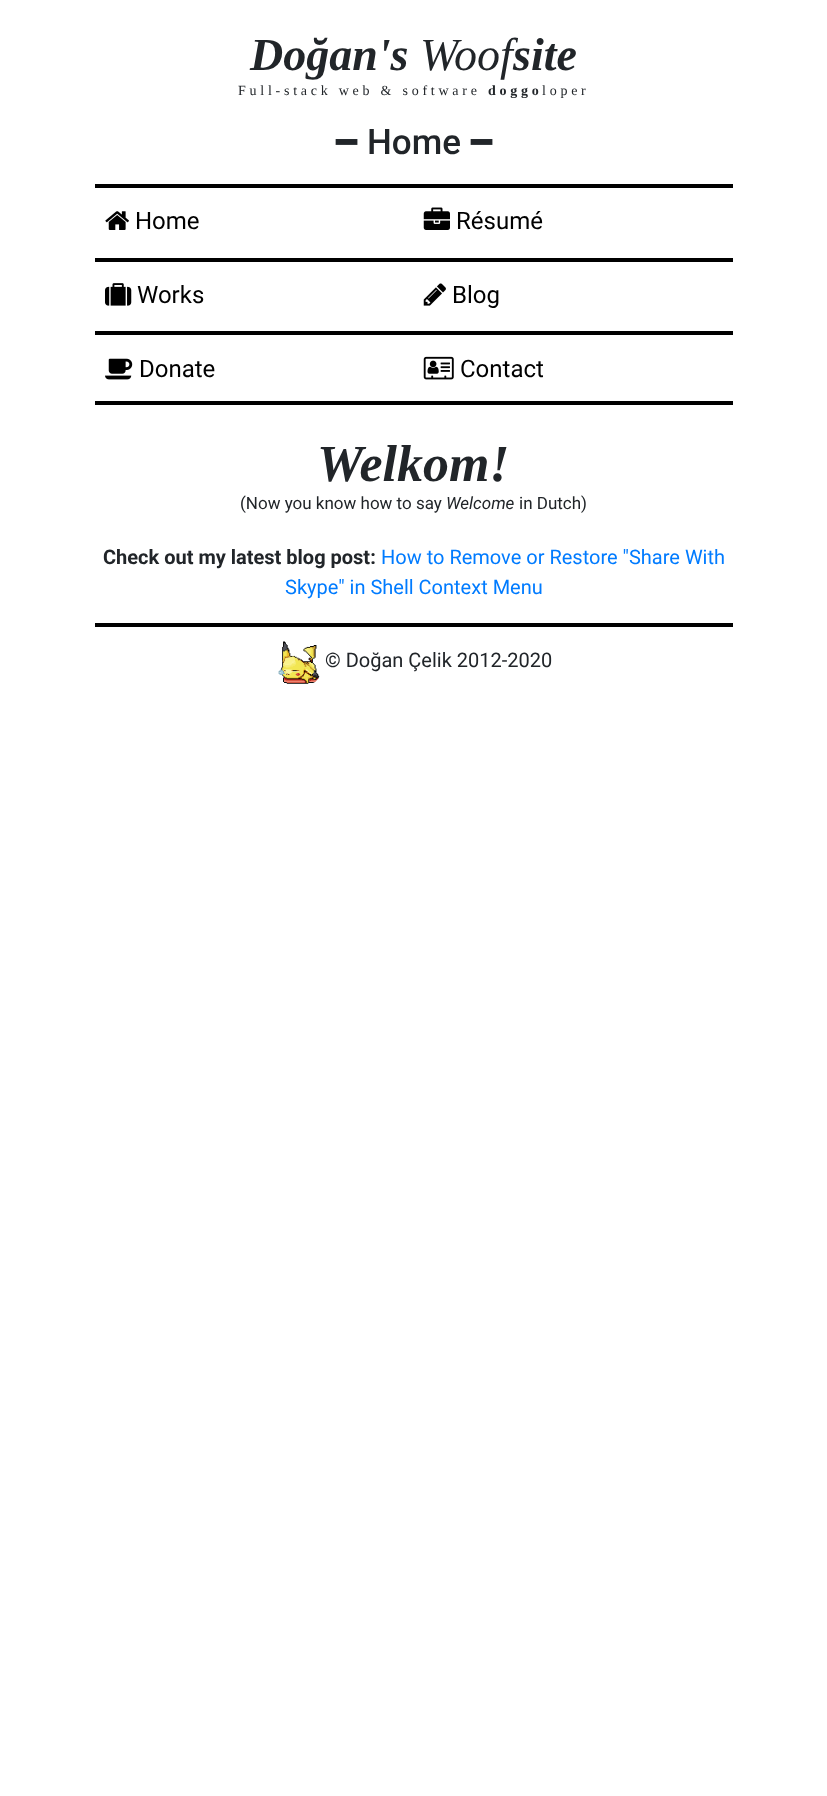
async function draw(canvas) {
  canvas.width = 827;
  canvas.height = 1796;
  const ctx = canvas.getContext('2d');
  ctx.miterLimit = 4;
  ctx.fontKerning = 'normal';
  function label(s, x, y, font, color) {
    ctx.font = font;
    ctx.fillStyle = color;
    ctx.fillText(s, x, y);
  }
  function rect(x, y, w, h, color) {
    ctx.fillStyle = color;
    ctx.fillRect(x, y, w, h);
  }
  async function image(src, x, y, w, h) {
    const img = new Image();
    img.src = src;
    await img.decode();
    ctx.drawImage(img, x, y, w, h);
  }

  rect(0, 0, 827, 1796, '#fff');
  label('Doğan\'s', 250, 70, 'italic bold 46px Liberation Serif', '#212529');
  label('Woof', 420, 70, 'italic 46px Liberation Serif', '#212529');
  label('site', 513, 70, 'italic bold 46px Liberation Serif', '#212529');
  ctx.letterSpacing = '3.75px';
  label('Full-stack web & software', 238, 95, '14px Liberation Serif', '#212529');
  label('doggo', 488, 95, 'bold 14px Liberation Serif', '#212529');
  label('loper', 542, 95, '14px Liberation Serif', '#212529');
  ctx.letterSpacing = '0px';
  label('━', 336, 154, '35px DejaVu Sans', '#212529');
  label('Home', 367, 154, '500 35px Roboto', '#212529');
  label('━', 471, 154, '35px DejaVu Sans', '#212529');
  rect(95, 184, 638, 4, '#000');
  rect(95, 401, 638, 4, '#000');
  await image('assets/img1.png', 105, 211, 24, 19);
  label('Home', 135, 229, '24px Roboto', '#000');
  await image('assets/img2.png', 423, 207, 27, 23);
  label('Résumé', 456, 229, '24px Roboto', '#000');
  rect(95, 258, 638, 4, '#000');
  await image('assets/img3.png', 105, 283, 27, 23);
  label('Works', 137, 303, '24px Roboto', '#000');
  await image('assets/img4.png', 423, 283, 23, 23);
  label('Blog', 452, 303, '24px Roboto', '#000');
  rect(95, 331, 638, 4, '#000');
  await image('assets/img5.png', 105, 358, 28, 22);
  label('Donate', 139, 377, '24px Roboto', '#000');
  await image('assets/img6.png', 423, 356, 31, 24);
  label('Contact', 460, 377, '24px Roboto', '#000');
  label('Welkom!', 317, 481, 'italic bold 52px Liberation Serif', '#212529');
  label('(Now you know how to say', 240, 509, '17px Roboto', '#212529');
  label('Welcome', 446, 509, 'italic 17px Roboto', '#212529');
  label('in Dutch)', 519, 509, '17px Roboto', '#212529');
  label('Check out my latest blog post:', 103, 564, 'bold 20px Roboto', '#212529');
  label('How to Remove or Restore "Share With', 381, 564, '20px Roboto', '#007bff');
  label('Skype" in Shell Context Menu', 285, 594, '20px Roboto', '#007bff');
  rect(95, 623, 638, 4, '#000');
  await image('assets/img7.png', 278, 641, 42, 43);
  label('© Doğan Çelik 2012-2020', 325, 667, '20px Roboto', '#212529');
}

draw(document.querySelector('canvas'));
